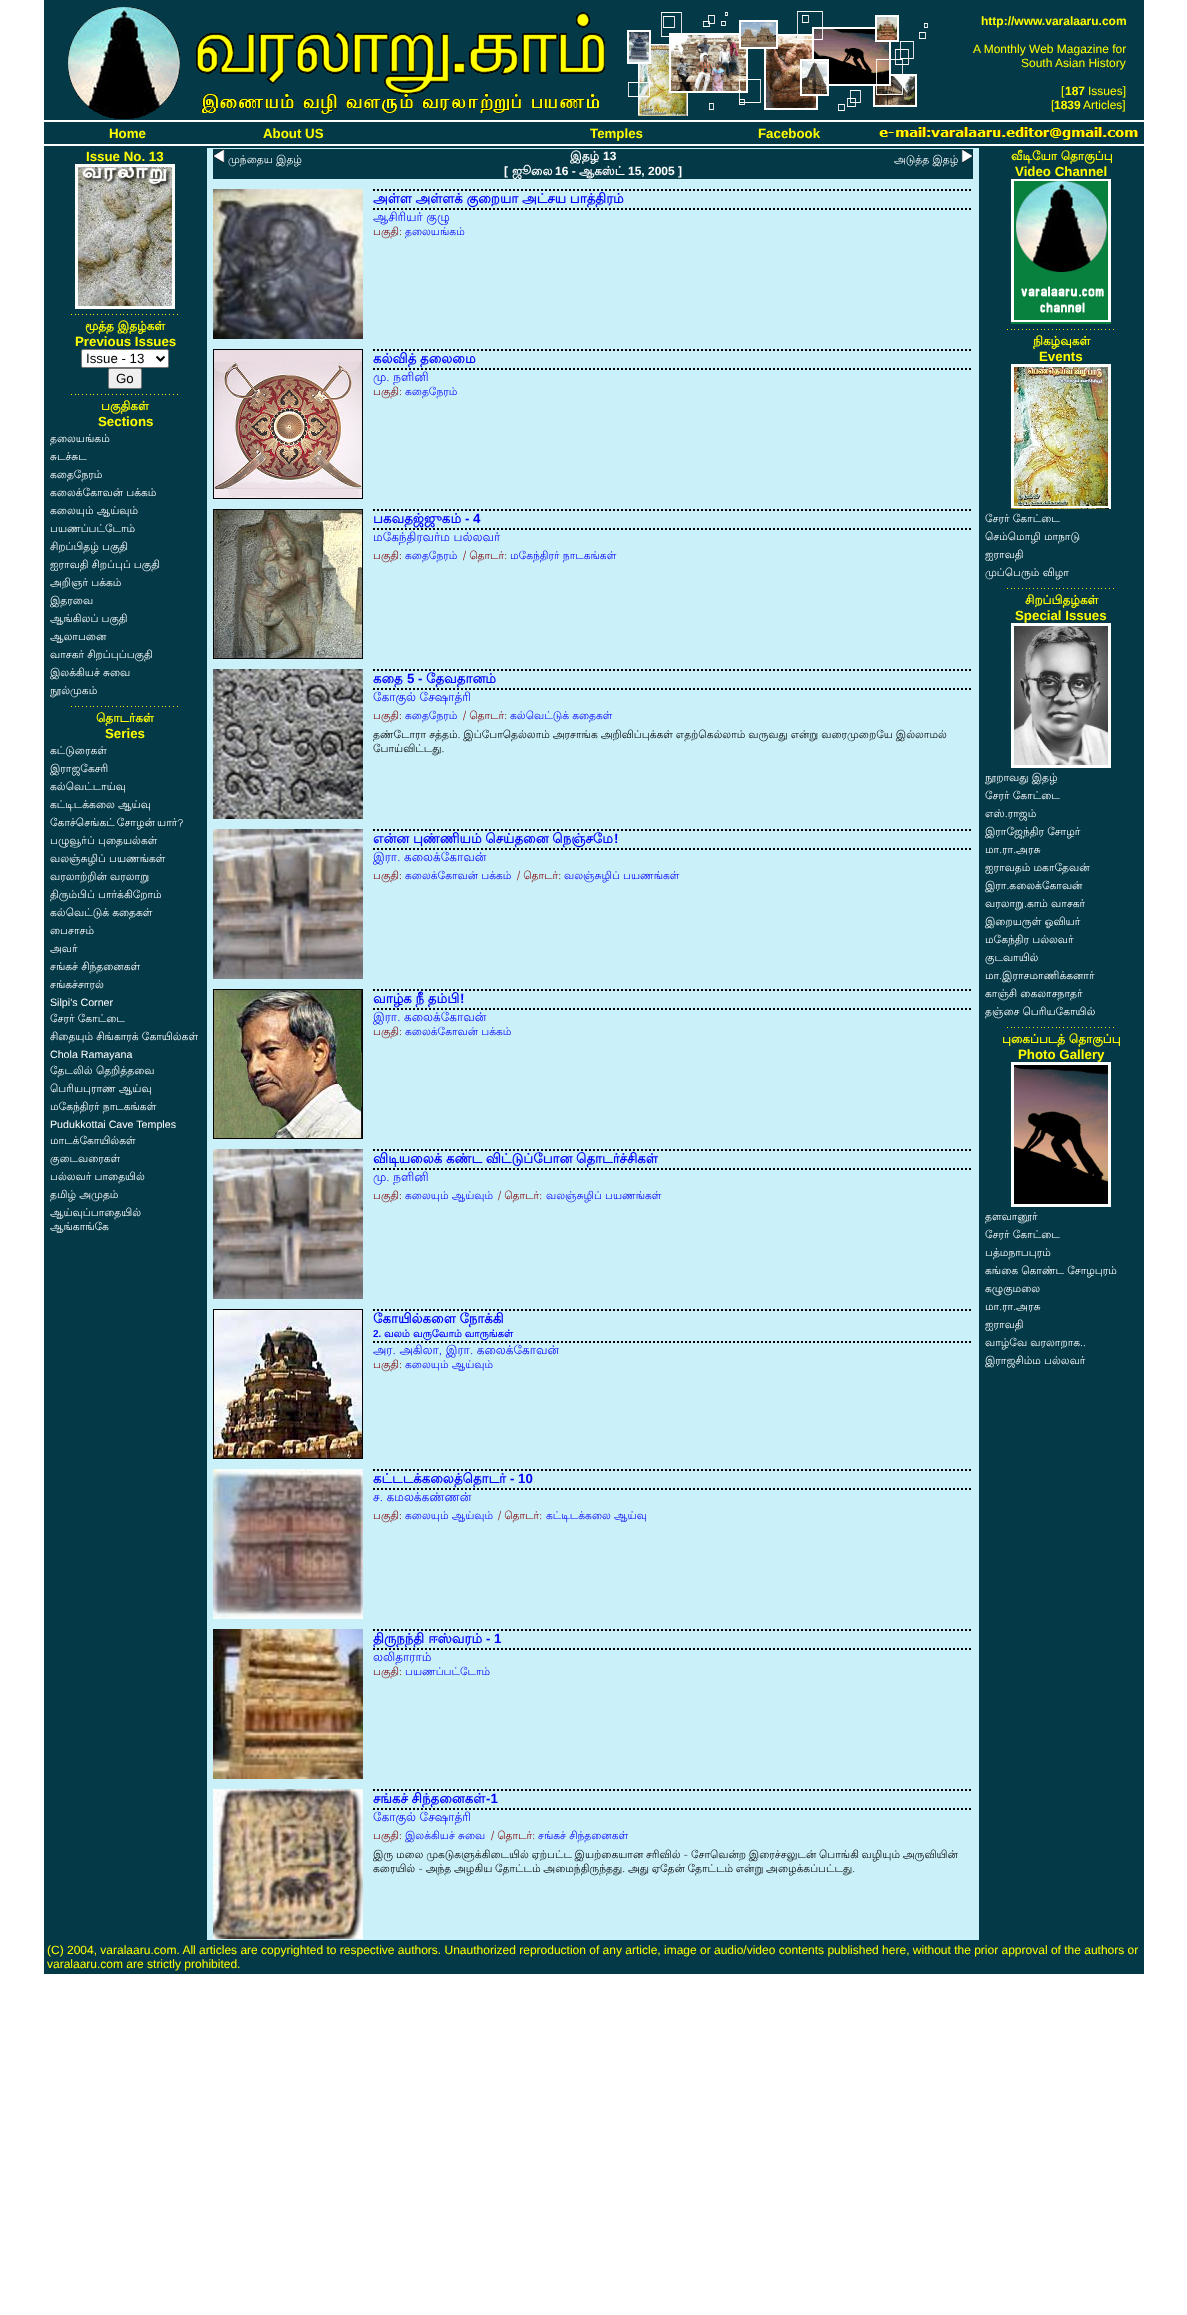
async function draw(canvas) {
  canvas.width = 1187;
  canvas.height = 2315;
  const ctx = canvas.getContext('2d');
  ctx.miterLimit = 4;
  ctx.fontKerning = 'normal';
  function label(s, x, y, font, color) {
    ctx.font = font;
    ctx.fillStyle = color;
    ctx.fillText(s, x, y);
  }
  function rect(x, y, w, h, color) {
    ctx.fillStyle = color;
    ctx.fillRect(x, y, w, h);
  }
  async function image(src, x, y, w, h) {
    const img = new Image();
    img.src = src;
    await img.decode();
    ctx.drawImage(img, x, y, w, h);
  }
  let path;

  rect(0, 0, 1187, 2315, '#fff');
  rect(44, 0, 1100, 120, '#043948');
  await image('assets/img1.png', 68, 7, 112, 112);
  await image('assets/img2.png', 196, 12, 409, 102);
  await image('assets/img3.png', 627, 11, 301, 105);
  label('http://www.varalaaru.com', 981, 25, 'bold 12px Liberation Sans', '#ff0');
  label('A Monthly Web Magazine for', 973, 53, '12px Liberation Sans', '#ff0');
  label('South Asian History', 1021, 67, '12px Liberation Sans', '#ff0');
  label('[', 1061, 95, '12px Liberation Sans', '#ff0');
  label('187', 1065, 95, 'bold 12px Liberation Sans', '#ff0');
  label('Issues]', 1088, 95, '12px Liberation Sans', '#ff0');
  label('[', 1051, 109, '12px Liberation Sans', '#ff0');
  label('1839', 1054, 109, 'bold 12px Liberation Sans', '#ff0');
  label('Articles]', 1083, 109, '12px Liberation Sans', '#ff0');
  rect(44, 122, 1100, 22, '#043948');
  label('Home', 109, 138, 'bold 13.3px Liberation Sans', '#ff0');
  label('About US', 263, 138, 'bold 13.3px Liberation Sans', '#ff0');
  label('Temples', 590, 138, 'bold 13.3px Liberation Sans', '#ff0');
  label('Facebook', 758, 138, 'bold 13.3px Liberation Sans', '#ff0');
  await image('assets/img4.png', 879, 127, 259, 13);
  rect(44, 146, 1100, 1828, '#043948');
  label('Issue No. 13', 86, 161, 'bold 13.3px Liberation Sans', '#ff0');
  await image('assets/img5.png', 75, 164, 100, 145);
  await image('assets/img6.png', 71, 314, 107, 1);
  label('மூத்த இதழ்கள்', 85, 330, 'bold 12px Lohit Tamil', '#ff0');
  label('Previous Issues', 75, 346, 'bold 13.3px Liberation Sans', '#ff0');
  ctx.fillStyle = '#fff';
  ctx.beginPath();
  ctx.roundRect(81.5, 349.5, 87, 18, 1.5);
  ctx.fill();
  ctx.strokeStyle = '#767676';
  ctx.stroke();
  path = new Path2D('M156.5 356.5L160.5 360.5L164.5 356.5');
  ctx.strokeStyle = '#000';
  ctx.lineWidth = 2;
  ctx.stroke(path);
  label('Issue - 13', 86, 363, '13.3px Liberation Sans', '#000');
  ctx.fillStyle = '#efefef';
  ctx.beginPath();
  ctx.roundRect(108.5, 368.5, 33, 20, 1.5);
  ctx.fill();
  ctx.strokeStyle = '#767676';
  ctx.lineWidth = 1;
  ctx.stroke();
  label('Go', 116, 383, '13.3px Liberation Sans', '#000');
  await image('assets/img6.png', 71, 394, 107, 1);
  label('பகுதிகள்', 101, 410, 'bold 12px Lohit Tamil', '#ff0');
  label('Sections', 98, 426, 'bold 13.3px Liberation Sans', '#ff0');
  label('தலையங்கம்', 50, 442, '10.67px Lohit Tamil', '#fff');
  label('சுடச்சுட', 50, 460, '10.67px Lohit Tamil', '#fff');
  label('கதைநேரம்', 50, 478, '10.67px Lohit Tamil', '#fff');
  label('கலைக்கோவன் பக்கம்', 50, 496, '10.67px Lohit Tamil', '#fff');
  label('கலையும் ஆய்வும்', 50, 514, '10.67px Lohit Tamil', '#fff');
  label('பயணப்பட்டோம்', 50, 532, '10.67px Lohit Tamil', '#fff');
  label('சிறப்பிதழ் பகுதி', 50, 550, '10.67px Lohit Tamil', '#fff');
  ctx.wordSpacing = '-0.25px';
  label('ஐராவதி சிறப்புப் பகுதி', 50, 568, '10.67px Lohit Tamil', '#fff');
  ctx.wordSpacing = '0px';
  label('அறிஞர் பக்கம்', 50, 586, '10.67px Lohit Tamil', '#fff');
  label('இதரவை', 50, 604, '10.67px Lohit Tamil', '#fff');
  label('ஆங்கிலப் பகுதி', 50, 622, '10.67px Lohit Tamil', '#fff');
  label('ஆலாபனை', 50, 640, '10.67px Lohit Tamil', '#fff');
  label('வாசகர் சிறப்புப்பகுதி', 50, 658, '10.67px Lohit Tamil', '#fff');
  label('இலக்கியச் சுவை', 50, 676, '10.67px Lohit Tamil', '#fff');
  label('நூல்முகம்', 50, 694, '10.67px Lohit Tamil', '#fff');
  await image('assets/img6.png', 71, 706, 107, 1);
  label('தொடர்கள்', 96, 722, 'bold 12px Lohit Tamil', '#ff0');
  label('Series', 105, 738, 'bold 13.3px Liberation Sans', '#ff0');
  label('கட்டுரைகள்', 50, 754, '10.67px Lohit Tamil', '#fff');
  label('இராஜகேசரி', 50, 772, '10.67px Lohit Tamil', '#fff');
  label('கல்வெட்டாய்வு', 50, 790, '10.67px Lohit Tamil', '#fff');
  label('கட்டிடக்கலை ஆய்வு', 50, 808, '10.67px Lohit Tamil', '#fff');
  ctx.wordSpacing = '-1px';
  label('கோச்செங்கட் சோழன் யார்?', 50, 826, '10.67px Lohit Tamil', '#fff');
  ctx.wordSpacing = '0px';
  label('பழுவூர்ப் புதையல்கள்', 50, 844, '10.67px Lohit Tamil', '#fff');
  label('வலஞ்சுழிப் பயணங்கள்', 50, 862, '10.67px Lohit Tamil', '#fff');
  label('வரலாற்றின் வரலாறு', 50, 880, '10.67px Lohit Tamil', '#fff');
  label('திரும்பிப் பார்க்கிறோம்', 50, 898, '10.67px Lohit Tamil', '#fff');
  label('கல்வெட்டுக் கதைகள்', 50, 916, '10.67px Lohit Tamil', '#fff');
  label('பைசாசம்', 50, 934, '10.67px Lohit Tamil', '#fff');
  label('அவர்', 50, 952, '10.67px Lohit Tamil', '#fff');
  label('சங்கச் சிந்தனைகள்', 50, 970, '10.67px Lohit Tamil', '#fff');
  label('சங்கச்சாரல்', 50, 988, '10.67px Lohit Tamil', '#fff');
  label('Silpi\'s Corner', 50, 1006, '10.67px Liberation Sans', '#fff');
  label('சேரர் கோட்டை', 50, 1022, '10.67px Lohit Tamil', '#fff');
  label('சிதையும் சிங்காரக் கோயில்கள்', 50, 1040, '10.67px Lohit Tamil', '#fff');
  label('Chola Ramayana', 50, 1058, '10.67px Liberation Sans', '#fff');
  label('தேடலில் தெறித்தவை', 50, 1074, '10.67px Lohit Tamil', '#fff');
  label('பெரியபுராண ஆய்வு', 50, 1092, '10.67px Lohit Tamil', '#fff');
  label('மகேந்திரர் நாடகங்கள்', 50, 1110, '10.67px Lohit Tamil', '#fff');
  label('Pudukkottai Cave Temples', 50, 1128, '10.67px Liberation Sans', '#fff');
  label('மாடக்கோயில்கள்', 50, 1144, '10.67px Lohit Tamil', '#fff');
  label('குடைவரைகள்', 50, 1162, '10.67px Lohit Tamil', '#fff');
  label('பல்லவர் பாதையில்', 50, 1180, '10.67px Lohit Tamil', '#fff');
  label('தமிழ் அமுதம்', 50, 1198, '10.67px Lohit Tamil', '#fff');
  label('ஆய்வுப்பாதையில்', 50, 1216, '10.67px Lohit Tamil', '#fff');
  label('ஆங்காங்கே', 50, 1230, '10.67px Lohit Tamil', '#fff');
  rect(207, 148, 772, 1792, '#caf0fa');
  rect(213, 149, 760, 30, '#043948');
  await image('assets/img7.png', 213, 149, 12, 14);
  label('முந்தைய இதழ்', 228, 163, '10.67px Lohit Tamil', '#fff');
  label('இதழ்', 570, 160, 'bold 12px Lohit Tamil', '#fff');
  label('13', 603, 160, 'bold 12px Liberation Sans', '#fff');
  label('[', 504, 175, 'bold 12px Liberation Sans', '#fff');
  label('ஜூலை', 512, 175, 'bold 12px Lohit Tamil', '#fff');
  label('16 -', 555, 175, 'bold 12px Liberation Sans', '#fff');
  label('ஆகஸ்ட்', 579, 175, 'bold 12px Lohit Tamil', '#fff');
  label('15, 2005 ]', 628, 175, 'bold 12px Liberation Sans', '#fff');
  label('அடுத்த இதழ்', 894, 163, '10.67px Lohit Tamil', '#fff');
  await image('assets/img8.png', 961, 149, 12, 14);
  await image('assets/img9.png', 213, 189, 150, 150);
  path = new Path2D('M373 190H973');
  ctx.strokeStyle = '#000';
  ctx.lineWidth = 2;
  ctx.setLineDash([2, 2]);
  ctx.stroke(path);
  path = new Path2D('M373 209H973');
  ctx.stroke(path);
  ctx.wordSpacing = '-0.25px';
  label('அள்ள அள்ளக் குறையா அட்சய பாத்திரம்', 373, 203, 'bold 13.3px Lohit Tamil', '#00f');
  ctx.wordSpacing = '0px';
  label('ஆசிரியர் குழு', 373, 221, '12px Lohit Tamil', '#00f');
  label('பகுதி:', 373, 235, '10.67px Lohit Tamil', '#800000');
  label('தலையங்கம்', 405, 235, '10.67px Lohit Tamil', '#00f');
  await image('assets/img10.png', 213, 349, 150, 150);
  path = new Path2D('M373 350H973');
  ctx.stroke(path);
  path = new Path2D('M373 369H973');
  ctx.stroke(path);
  ctx.wordSpacing = '-0.25px';
  label('கல்வித் தலைமை', 373, 363, 'bold 13.3px Lohit Tamil', '#00f');
  ctx.wordSpacing = '0px';
  label('மு. நளினி', 373, 381, '12px Lohit Tamil', '#00f');
  label('பகுதி:', 373, 395, '10.67px Lohit Tamil', '#800000');
  label('கதைநேரம்', 405, 395, '10.67px Lohit Tamil', '#00f');
  await image('assets/img11.png', 213, 509, 150, 150);
  path = new Path2D('M373 510H973');
  ctx.stroke(path);
  path = new Path2D('M373 529H973');
  ctx.stroke(path);
  label('பகவதஜ்ஜுகம்', 373, 523, 'bold 13.3px Lohit Tamil', '#00f');
  label('- 4', 465, 523, 'bold 13.3px Liberation Sans', '#00f');
  label('மகேந்திரவர்ம பல்லவர்', 373, 541, '12px Lohit Tamil', '#00f');
  label('பகுதி:', 373, 559, '10.67px Lohit Tamil', '#800000');
  label('கதைநேரம்', 405, 559, '10.67px Lohit Tamil', '#00f');
  ctx.wordSpacing = '-1px';
  label('/ தொடர்:', 462, 559, '10.67px Lohit Tamil', '#800000');
  ctx.wordSpacing = '0px';
  label('மகேந்திரர் நாடகங்கள்', 510, 559, '10.67px Lohit Tamil', '#00f');
  await image('assets/img12.png', 213, 669, 150, 150);
  path = new Path2D('M373 670H973');
  ctx.stroke(path);
  path = new Path2D('M373 689H973');
  ctx.stroke(path);
  label('கதை', 373, 683, 'bold 13.3px Lohit Tamil', '#00f');
  label('5 -', 407, 683, 'bold 13.3px Liberation Sans', '#00f');
  label('தேவதானம்', 426, 683, 'bold 13.3px Lohit Tamil', '#00f');
  label('கோகுல் சேஷாத்ரி', 373, 701, '12px Lohit Tamil', '#00f');
  label('பகுதி:', 373, 719, '10.67px Lohit Tamil', '#800000');
  label('கதைநேரம்', 405, 719, '10.67px Lohit Tamil', '#00f');
  ctx.wordSpacing = '-1px';
  label('/ தொடர்:', 462, 719, '10.67px Lohit Tamil', '#800000');
  ctx.wordSpacing = '0px';
  label('கல்வெட்டுக் கதைகள்', 510, 719, '10.67px Lohit Tamil', '#00f');
  ctx.wordSpacing = '-0.25px';
  label('தண்டோரா சத்தம். இப்போதெல்லாம் அரசாங்க அறிவிப்புக்கள் எதற்கெல்லாம் வருவது என்று வரைமுறையே இல்லாமல்', 373, 738, '10.67px Lohit Tamil', '#000');
  ctx.wordSpacing = '0px';
  label('போய்விட்டது.', 373, 752, '10.67px Lohit Tamil', '#000');
  await image('assets/img13.png', 213, 829, 150, 150);
  path = new Path2D('M373 830H973');
  ctx.stroke(path);
  path = new Path2D('M373 849H973');
  ctx.stroke(path);
  ctx.wordSpacing = '-0.25px';
  label('என்ன புண்ணியம் செய்தனை நெஞ்சமே', 373, 843, 'bold 13.3px Lohit Tamil', '#00f');
  ctx.wordSpacing = '0px';
  label('!', 614, 843, 'bold 13.3px Liberation Sans', '#00f');
  label('இரா. கலைக்கோவன்', 373, 861, '12px Lohit Tamil', '#00f');
  label('பகுதி:', 373, 879, '10.67px Lohit Tamil', '#800000');
  label('கலைக்கோவன் பக்கம்', 405, 879, '10.67px Lohit Tamil', '#00f');
  ctx.wordSpacing = '-1px';
  label('/ தொடர்:', 516, 879, '10.67px Lohit Tamil', '#800000');
  ctx.wordSpacing = '0px';
  label('வலஞ்சுழிப் பயணங்கள்', 564, 879, '10.67px Lohit Tamil', '#00f');
  await image('assets/img14.png', 213, 989, 150, 150);
  path = new Path2D('M373 990H973');
  ctx.stroke(path);
  path = new Path2D('M373 1009H973');
  ctx.stroke(path);
  ctx.wordSpacing = '-0.25px';
  label('வாழ்க நீ தம்பி', 373, 1003, 'bold 13.3px Lohit Tamil', '#00f');
  ctx.wordSpacing = '0px';
  label('!', 460, 1003, 'bold 13.3px Liberation Sans', '#00f');
  label('இரா. கலைக்கோவன்', 373, 1021, '12px Lohit Tamil', '#00f');
  label('பகுதி:', 373, 1035, '10.67px Lohit Tamil', '#800000');
  label('கலைக்கோவன் பக்கம்', 405, 1035, '10.67px Lohit Tamil', '#00f');
  await image('assets/img13.png', 213, 1149, 150, 150);
  path = new Path2D('M373 1150H973');
  ctx.stroke(path);
  path = new Path2D('M373 1169H973');
  ctx.stroke(path);
  ctx.wordSpacing = '-0.25px';
  label('விடியலைக் கண்ட விட்டுப்போன தொடர்ச்சிகள்', 373, 1163, 'bold 13.3px Lohit Tamil', '#00f');
  ctx.wordSpacing = '0px';
  label('மு. நளினி', 373, 1181, '12px Lohit Tamil', '#00f');
  label('பகுதி:', 373, 1199, '10.67px Lohit Tamil', '#800000');
  label('கலையும் ஆய்வும்', 405, 1199, '10.67px Lohit Tamil', '#00f');
  ctx.wordSpacing = '-1px';
  label('/ தொடர்:', 497, 1199, '10.67px Lohit Tamil', '#800000');
  ctx.wordSpacing = '0px';
  label('வலஞ்சுழிப் பயணங்கள்', 546, 1199, '10.67px Lohit Tamil', '#00f');
  await image('assets/img15.png', 213, 1309, 150, 150);
  path = new Path2D('M373 1310H973');
  ctx.stroke(path);
  path = new Path2D('M373 1342H973');
  ctx.stroke(path);
  ctx.wordSpacing = '-0.25px';
  label('கோயில்களை நோக்கி', 373, 1323, 'bold 13.3px Lohit Tamil', '#00f');
  ctx.wordSpacing = '0px';
  label('2.', 373, 1337, 'bold 10px Liberation Sans', '#00f');
  label('வலம் வருவோம் வாருங்கள்', 384, 1337, 'bold 10px Lohit Tamil', '#00f');
  label('அர. அகிலா, இரா. கலைக்கோவன்', 373, 1354, '12px Lohit Tamil', '#00f');
  label('பகுதி:', 373, 1368, '10.67px Lohit Tamil', '#800000');
  label('கலையும் ஆய்வும்', 405, 1368, '10.67px Lohit Tamil', '#00f');
  await image('assets/img16.png', 213, 1469, 150, 150);
  path = new Path2D('M373 1470H973');
  ctx.stroke(path);
  path = new Path2D('M373 1489H973');
  ctx.stroke(path);
  label('கட்டடக்கலைத்தொடர்', 373, 1483, 'bold 13.3px Lohit Tamil', '#00f');
  label('- 10', 510, 1483, 'bold 13.3px Liberation Sans', '#00f');
  label('ச. கமலக்கண்ணன்', 373, 1501, '12px Lohit Tamil', '#00f');
  label('பகுதி:', 373, 1519, '10.67px Lohit Tamil', '#800000');
  label('கலையும் ஆய்வும்', 405, 1519, '10.67px Lohit Tamil', '#00f');
  ctx.wordSpacing = '-1px';
  label('/ தொடர்:', 497, 1519, '10.67px Lohit Tamil', '#800000');
  ctx.wordSpacing = '0px';
  label('கட்டிடக்கலை ஆய்வு', 546, 1519, '10.67px Lohit Tamil', '#00f');
  await image('assets/img17.png', 213, 1629, 150, 150);
  path = new Path2D('M373 1630H973');
  ctx.stroke(path);
  path = new Path2D('M373 1649H973');
  ctx.stroke(path);
  label('திருநந்தி ஈஸ்வரம்', 373, 1643, 'bold 13.3px Lohit Tamil', '#00f');
  label('- 1', 486, 1643, 'bold 13.3px Liberation Sans', '#00f');
  label('லலிதாராம்', 373, 1661, '12px Lohit Tamil', '#00f');
  label('பகுதி:', 373, 1675, '10.67px Lohit Tamil', '#800000');
  label('பயணப்பட்டோம்', 405, 1675, '10.67px Lohit Tamil', '#00f');
  await image('assets/img18.png', 213, 1789, 150, 150);
  path = new Path2D('M373 1790H973');
  ctx.stroke(path);
  path = new Path2D('M373 1809H973');
  ctx.stroke(path);
  ctx.wordSpacing = '-0.25px';
  label('சங்கச் சிந்தனைகள்', 373, 1803, 'bold 13.3px Lohit Tamil', '#00f');
  ctx.wordSpacing = '0px';
  label('-1', 486, 1803, 'bold 13.3px Liberation Sans', '#00f');
  label('கோகுல் சேஷாத்ரி', 373, 1821, '12px Lohit Tamil', '#00f');
  label('பகுதி:', 373, 1839, '10.67px Lohit Tamil', '#800000');
  label('இலக்கியச் சுவை', 405, 1839, '10.67px Lohit Tamil', '#00f');
  ctx.wordSpacing = '-1px';
  label('/ தொடர்:', 490, 1839, '10.67px Lohit Tamil', '#800000');
  ctx.wordSpacing = '0px';
  label('சங்கச் சிந்தனைகள்', 538, 1839, '10.67px Lohit Tamil', '#00f');
  ctx.wordSpacing = '-0.5px';
  label('இரு மலை முகடுகளுக்கிடையில் ஏற்பட்ட இயற்கையான சரிவில் - சோவென்ற இரைச்சலுடன் பொங்கி வழியும் அருவியின்', 373, 1858, '10.67px Lohit Tamil', '#000');
  label('கரையில் - அந்த அழகிய தோட்டம் அமைந்திருந்தது. அது ஏதேன் தோட்டம் என்று அழைக்கப்பட்டது.', 373, 1872, '10.67px Lohit Tamil', '#000');
  ctx.wordSpacing = '0px';
  label('வீடியோ தொகுப்பு', 1011, 160, 'bold 12px Lohit Tamil', '#ff0');
  label('Video Channel', 1015, 176, 'bold 13.3px Liberation Sans', '#ff0');
  await image('assets/img19.png', 1011, 179, 100, 145);
  await image('assets/img6.png', 1007, 329, 107, 1);
  label('நிகழ்வுகள்', 1033, 345, 'bold 12px Lohit Tamil', '#ff0');
  label('Events', 1039, 361, 'bold 13.3px Liberation Sans', '#ff0');
  await image('assets/img20.png', 1011, 364, 100, 145);
  label('சேரர் கோட்டை', 985, 522, '10.67px Lohit Tamil', '#fff');
  label('செம்மொழி மாநாடு', 985, 540, '10.67px Lohit Tamil', '#fff');
  label('ஐராவதி', 985, 558, '10.67px Lohit Tamil', '#fff');
  label('முப்பெரும் விழா', 985, 576, '10.67px Lohit Tamil', '#fff');
  await image('assets/img6.png', 1007, 588, 107, 1);
  label('சிறப்பிதழ்கள்', 1025, 604, 'bold 12px Lohit Tamil', '#ff0');
  label('Special Issues', 1015, 620, 'bold 13.3px Liberation Sans', '#ff0');
  await image('assets/img21.png', 1011, 623, 100, 145);
  label('நூறாவது இதழ்', 985, 781, '10.67px Lohit Tamil', '#fff');
  label('சேரர் கோட்டை', 985, 799, '10.67px Lohit Tamil', '#fff');
  label('எஸ்.ராஜம்', 985, 817, '10.67px Lohit Tamil', '#fff');
  label('இராஜேந்திர சோழர்', 985, 835, '10.67px Lohit Tamil', '#fff');
  label('மா.ரா.அரசு', 985, 853, '10.67px Lohit Tamil', '#fff');
  label('ஐராவதம் மகாதேவன்', 985, 871, '10.67px Lohit Tamil', '#fff');
  label('இரா.கலைக்கோவன்', 985, 889, '10.67px Lohit Tamil', '#fff');
  label('வரலாறு.காம் வாசகர்', 985, 907, '10.67px Lohit Tamil', '#fff');
  label('இறையருள் ஓவியர்', 985, 925, '10.67px Lohit Tamil', '#fff');
  label('மகேந்திர பல்லவர்', 985, 943, '10.67px Lohit Tamil', '#fff');
  label('குடவாயில்', 985, 961, '10.67px Lohit Tamil', '#fff');
  label('மா.இராசமாணிக்கனார்', 985, 979, '10.67px Lohit Tamil', '#fff');
  label('காஞ்சி கைலாசநாதர்', 985, 997, '10.67px Lohit Tamil', '#fff');
  label('தஞ்சை பெரியகோயில்', 985, 1015, '10.67px Lohit Tamil', '#fff');
  await image('assets/img6.png', 1007, 1027, 107, 1);
  label('புகைப்படத் தொகுப்பு', 1002, 1043, 'bold 12px Lohit Tamil', '#ff0');
  label('Photo Gallery', 1018, 1059, 'bold 13.3px Liberation Sans', '#ff0');
  await image('assets/img22.png', 1011, 1062, 100, 145);
  label('தளவானூர்', 985, 1220, '10.67px Lohit Tamil', '#fff');
  label('சேரர் கோட்டை', 985, 1238, '10.67px Lohit Tamil', '#fff');
  label('பத்மநாபபுரம்', 985, 1256, '10.67px Lohit Tamil', '#fff');
  label('கங்கை கொண்ட சோழபுரம்', 985, 1274, '10.67px Lohit Tamil', '#fff');
  label('கழுகுமலை', 985, 1292, '10.67px Lohit Tamil', '#fff');
  label('மா.ரா.அரசு', 985, 1310, '10.67px Lohit Tamil', '#fff');
  label('ஐராவதி', 985, 1328, '10.67px Lohit Tamil', '#fff');
  label('வாழ்வே வரலாறாக..', 985, 1346, '10.67px Lohit Tamil', '#fff');
  label('இராஜசிம்ம பல்லவர்', 985, 1364, '10.67px Lohit Tamil', '#fff');
  label('(C) 2004, varalaaru.com. All articles are copyrighted to respective authors. Unauthorized reproduction of any article, image or audio/video contents published here, without the prior approval of the authors or', 47, 1954, '12px Liberation Sans', '#ff0');
  label('varalaaru.com are strictly prohibited.', 47, 1968, '12px Liberation Sans', '#ff0');
}

draw(document.querySelector('canvas'));
